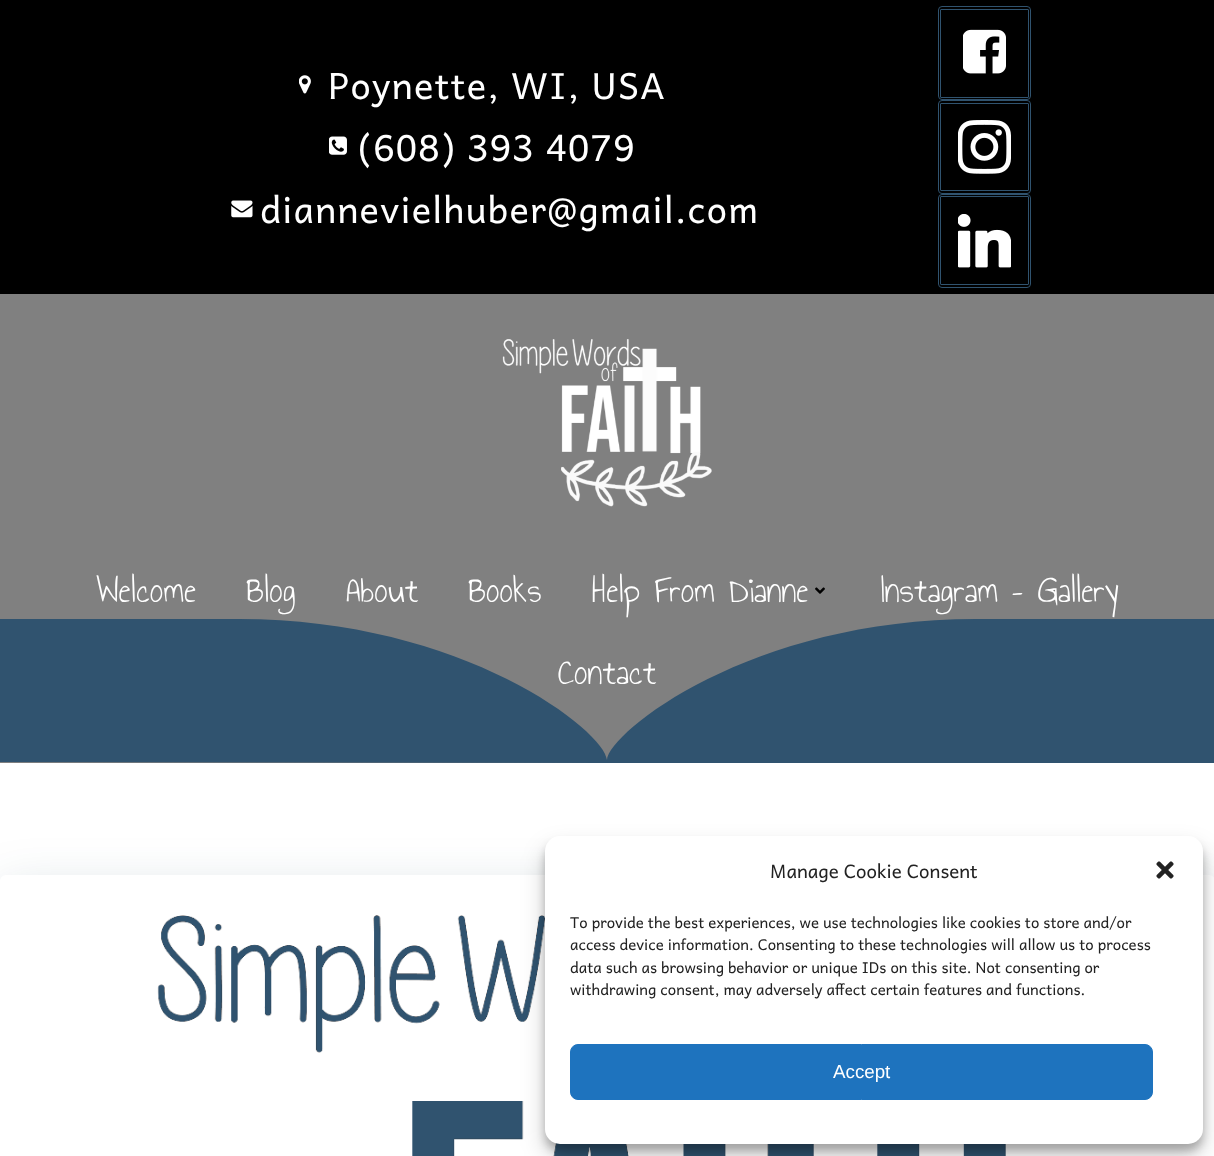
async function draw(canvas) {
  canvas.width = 1214;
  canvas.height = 1156;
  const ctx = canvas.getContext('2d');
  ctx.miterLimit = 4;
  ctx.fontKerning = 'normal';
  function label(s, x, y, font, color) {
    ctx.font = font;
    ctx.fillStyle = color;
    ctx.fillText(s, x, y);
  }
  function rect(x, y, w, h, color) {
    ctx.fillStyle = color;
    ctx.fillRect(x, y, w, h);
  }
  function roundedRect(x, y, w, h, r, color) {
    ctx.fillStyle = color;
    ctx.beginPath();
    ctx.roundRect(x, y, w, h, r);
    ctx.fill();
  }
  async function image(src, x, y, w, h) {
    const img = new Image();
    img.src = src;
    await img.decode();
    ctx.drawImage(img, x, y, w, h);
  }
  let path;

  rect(0, 0, 1214, 1156, '#fff');
  rect(0, 0, 1214, 294, '#000');
  await image('assets/img1.png', 299, 75, 12, 19);
  ctx.letterSpacing = '1.25px';
  label('Poynette, WI, USA', 328, 99, '36.25px Andika', '#fff');
  await image('assets/img2.png', 329, 136, 18, 19);
  label('(608) 393 4079', 358, 161, '36.25px Andika', '#fff');
  await image('assets/img3.png', 231, 200, 22, 18);
  label('diannevielhuber@gmail.com', 260, 223, '36.25px Andika', '#fff');
  ctx.beginPath();
  ctx.roundRect(938.5, 6.5, 92, 93, 3.5);
  ctx.strokeStyle = '#30536f';
  ctx.stroke();
  ctx.beginPath();
  ctx.roundRect(940.5, 9.5, 88, 88, 0.5);
  ctx.stroke();
  await image('assets/img4.png', 963, 29, 43, 45);
  ctx.beginPath();
  ctx.roundRect(938.5, 100.5, 92, 93, 3.5);
  ctx.stroke();
  ctx.beginPath();
  ctx.roundRect(940.5, 103.5, 88, 87, 0.5);
  ctx.stroke();
  await image('assets/img5.png', 958, 120, 53, 54);
  ctx.beginPath();
  ctx.roundRect(938.5, 194.5, 92, 93, 3.5);
  ctx.stroke();
  ctx.beginPath();
  ctx.roundRect(940.5, 196.5, 88, 88, 0.5);
  ctx.stroke();
  await image('assets/img6.png', 958, 214, 53, 54);
  rect(0, 294, 1214, 469, '#808080');
  await image('assets/img7.png', 502, 339, 210, 168);
  ctx.letterSpacing = '0px';
  label('Welcome', 96, 602, '37.5px Annie Use Your Telescope', '#fff');
  label('Blog', 246, 602, '37.5px Annie Use Your Telescope', '#fff');
  label('About', 346, 602, '37.5px Annie Use Your Telescope', '#fff');
  label('Books', 468, 602, '37.5px Annie Use Your Telescope', '#fff');
  label('Help From Dianne', 592, 602, '37.5px Annie Use Your Telescope', '#fff');
  await image('assets/img8.png', 815, 587, 10, 7);
  label('Instagram – Gallery', 881, 602, '37.5px Annie Use Your Telescope', '#fff');
  ctx.save();
  ctx.beginPath();
  ctx.rect(0, 618, 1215, 145);
  ctx.clip();
  ctx.fillStyle = '#30536f';
  path = new Path2D('M236 619C463 618 606 732 607 760C609 732 752 618 979 619C1118 619 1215 619 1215 619V764L0 762V619Z');
  ctx.fill(path);
  ctx.restore();
  label('Contact', 558, 684, '37.5px Annie Use Your Telescope', '#fff');
  ctx.fillStyle = '#01334a26';
  ctx.filter = 'blur(25px)';
  ctx.beginPath();
  ctx.roundRect(0, 888, 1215, 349, 6);
  ctx.fill();
  ctx.filter = 'none';
  roundedRect(0, 875, 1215, 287, 6, '#fff');
  await image('assets/img9.png', 157, 915, 849, 241);
  ctx.fillStyle = '#0000003b';
  ctx.filter = 'blur(4px)';
  ctx.beginPath();
  ctx.roundRect(545, 844, 658, 307, 15);
  ctx.fill();
  ctx.filter = 'none';
  ctx.fillStyle = '#00000030';
  ctx.filter = 'blur(12.5px)';
  ctx.beginPath();
  ctx.roundRect(545, 849, 658, 307, 15);
  ctx.fill();
  ctx.filter = 'none';
  roundedRect(545, 836, 658, 308, 15, '#fff');
  label('Manage Cookie Consent', 770, 878, '18.75px Andika', '#222');
  await image('assets/img10.png', 1156, 861, 18, 18);
  label('To provide the best experiences, we use technologies like cookies to store and/or', 570, 928, '15px Andika', '#222');
  label('access device information. Consenting to these technologies will allow us to process', 570, 950, '15px Andika', '#222');
  label('data such as browsing behavior or unique IDs on this site. Not consenting or', 570, 973, '15px Andika', '#222');
  label('withdrawing consent, may adversely affect certain features and functions.', 570, 995, '15px Andika', '#222');
  ctx.fillStyle = '#1e73be';
  ctx.beginPath();
  ctx.roundRect(570.5, 1044.5, 582, 55, 7.5);
  ctx.fill();
  ctx.strokeStyle = '#1e73be';
  ctx.stroke();
  label('Accept', 833, 1078, '18.75px Liberation Sans', '#fff');
}

draw(document.querySelector('canvas'));
